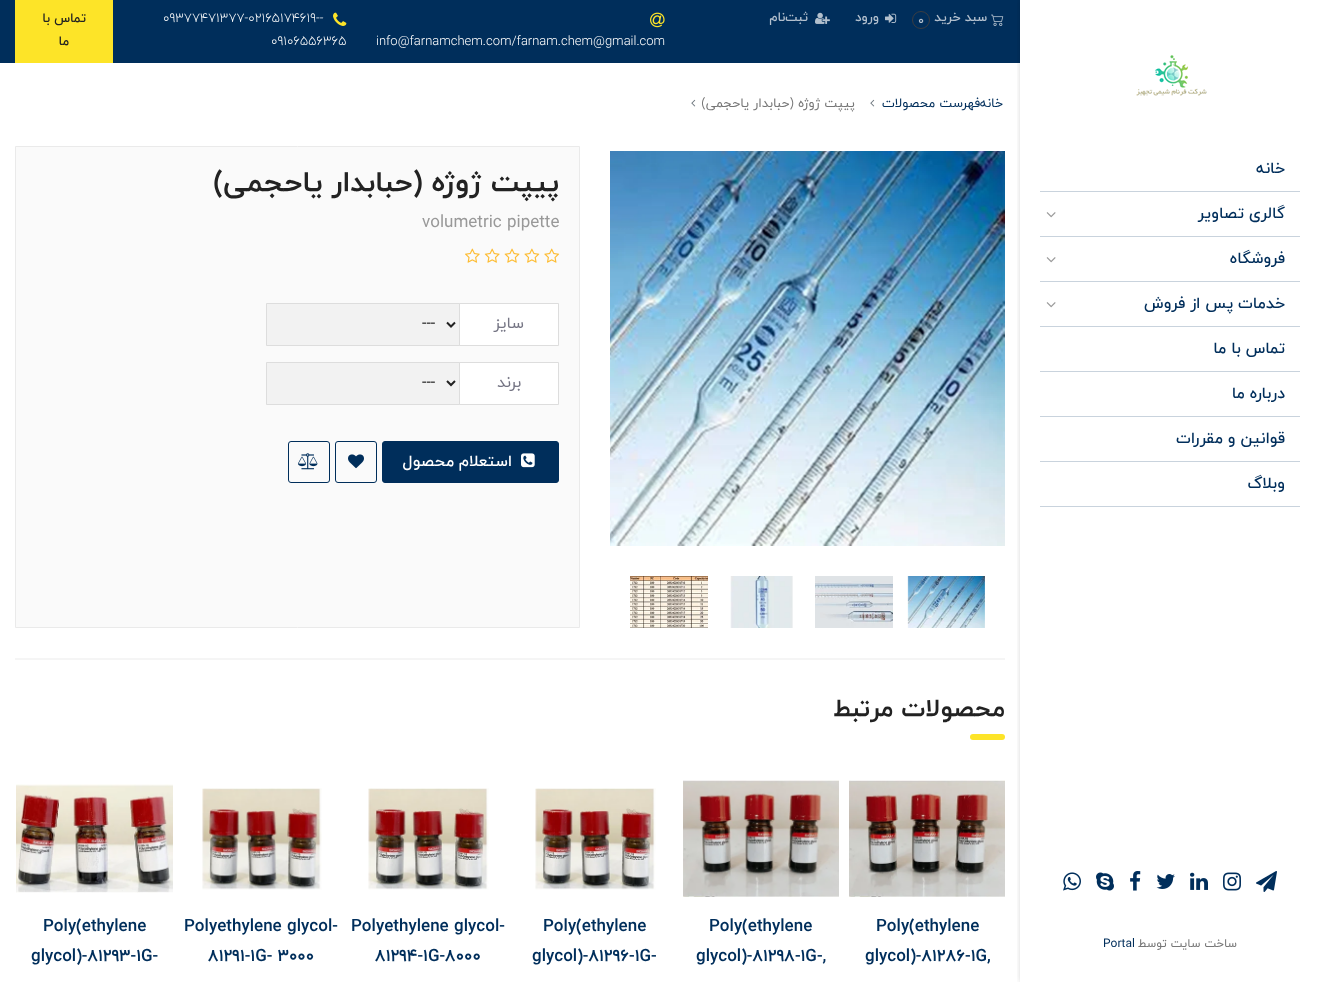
async function draw(canvas) {
  canvas.width = 1320;
  canvas.height = 982;
  const ctx = canvas.getContext('2d');
  ctx.miterLimit = 4;
  ctx.fontKerning = 'normal';
  function label(s, x, y, font, color) {
    ctx.font = font;
    ctx.fillStyle = color;
    ctx.fillText(s, x, y);
  }
  function rect(x, y, w, h, color) {
    ctx.fillStyle = color;
    ctx.fillRect(x, y, w, h);
  }
  function roundedRect(x, y, w, h, r, color) {
    ctx.fillStyle = color;
    ctx.beginPath();
    ctx.roundRect(x, y, w, h, r);
    ctx.fill();
  }
  async function image(src, x, y, w, h) {
    const img = new Image();
    img.src = src;
    await img.decode();
    ctx.drawImage(img, x, y, w, h);
  }
  let path;

  rect(0, 0, 1320, 982, '#fff');
  rect(0, 0, 1020, 63, '#002e5b');
  rect(15, 0, 98, 63, '#fde428');
  ctx.direction = 'rtl';
  label('تماس با', 86, 22, '500 13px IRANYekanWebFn', '#222');
  label('ما', 69, 45, '500 13px IRANYekanWebFn', '#222');
  ctx.direction = 'ltr';
  label('09377471377-02165174619--', 163, 22, '300 13px IRANYekanWebFn', '#fff');
  await image('assets/img1.png', 333, 12, 14, 14);
  label('09106556365', 271, 45, '300 13px IRANYekanWebFn', '#fff');
  await image('assets/img2.png', 650, 12, 15, 16);
  label('info@farnamchem.com/farnam.chem@gmail.com', 376, 45, '300 13px IRANYekanWebFn', '#fff');
  ctx.direction = 'rtl';
  label('ثبت‌نام', 808, 21, '500 13px IRANYekanWebFn', '#b3c0ce');
  await image('assets/img3.png', 815, 12, 15, 12);
  label('ورود', 879, 21, '500 13px IRANYekanWebFn', '#b3c0ce');
  await image('assets/img4.png', 885, 13, 12, 10);
  ctx.beginPath();
  ctx.arc(921, 20, 8.5, 0, 2 * Math.PI);
  ctx.strokeStyle = '#3b3d42';
  ctx.stroke();
  ctx.direction = 'ltr';
  label('0', 918, 24, '500 12px IRANYekanWebFn', '#b3c0ce');
  ctx.direction = 'rtl';
  label('سبد خرید', 987, 21, '500 13px IRANYekanWebFn', '#b3c0ce');
  await image('assets/img5.png', 991, 14, 13, 12);
  ctx.save();
  ctx.beginPath();
  ctx.rect(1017, 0, 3, 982);
  ctx.clip();
  ctx.fillStyle = '#00000033';
  ctx.filter = 'blur(3px)';
  ctx.beginPath();
  ctx.rect(1021, 0, 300, 982);
  ctx.fill();
  ctx.filter = 'none';
  ctx.restore();
  await image('assets/img6.png', 1136, 55, 71, 41);
  rect(1040, 191, 260, 1, '#c9d3dd');
  label('خانه', 1285, 173, '500 16px IRANYekanWebFn', '#002e5b');
  await image('assets/img7.png', 1046, 212, 10, 6);
  rect(1040, 236, 260, 1, '#c9d3dd');
  label('گالری تصاویر', 1285, 218, '500 16px IRANYekanWebFn', '#002e5b');
  await image('assets/img7.png', 1046, 257, 10, 6);
  rect(1040, 281, 260, 1, '#c9d3dd');
  label('فروشگاه', 1285, 263, '500 16px IRANYekanWebFn', '#002e5b');
  await image('assets/img7.png', 1046, 302, 10, 6);
  rect(1040, 326, 260, 1, '#c9d3dd');
  label('خدمات پس از فروش', 1285, 308, '500 16px IRANYekanWebFn', '#002e5b');
  rect(1040, 371, 260, 1, '#c9d3dd');
  label('تماس با ما', 1285, 353, '500 16px IRANYekanWebFn', '#002e5b');
  rect(1040, 416, 260, 1, '#c9d3dd');
  label('درباره ما', 1285, 398, '500 16px IRANYekanWebFn', '#002e5b');
  rect(1040, 461, 260, 1, '#c9d3dd');
  label('قوانین و مقررات', 1285, 443, '500 16px IRANYekanWebFn', '#002e5b');
  rect(1040, 506, 260, 1, '#c9d3dd');
  label('وبلاگ', 1285, 488, '500 16px IRANYekanWebFn', '#002e5b');
  await image('assets/img8.png', 1063, 872, 18, 19);
  await image('assets/img9.png', 1096, 872, 18, 19);
  await image('assets/img10.png', 1130, 871, 11, 20);
  await image('assets/img11.png', 1156, 874, 19, 15);
  await image('assets/img12.png', 1190, 872, 18, 18);
  await image('assets/img13.png', 1223, 872, 18, 19);
  await image('assets/img14.png', 1256, 871, 21, 21);
  ctx.direction = 'ltr';
  label('Portal', 1103, 947, '12px IRANYekanWebFn', '#002e5b');
  ctx.direction = 'rtl';
  label('ساخت سایت توسط', 1237, 947, '12px IRANYekanWebFn', '#777');
  await image('assets/img15.png', 691, 99, 5, 8);
  label('پیپت ژوژه (حبابدار یاحجمی)', 855, 107, '13px IRANYekanWebFn', '#777');
  await image('assets/img15.png', 870, 99, 5, 8);
  label('فهرست محصولات', 980, 107, '13px IRANYekanWebFn', '#002e5b');
  label('خانه', 1003, 107, '13px IRANYekanWebFn', '#002e5b');
  ctx.fillStyle = '#fafafa';
  ctx.beginPath();
  ctx.rect(15.5, 146.5, 564, 481);
  ctx.fill();
  ctx.strokeStyle = '#eaeaea';
  ctx.stroke();
  label('پیپت ژوژه (حبابدار یاحجمی)', 559, 191, 'bold 29px IRANYekanWebFn', '#222');
  ctx.direction = 'ltr';
  label('volumetric pipette', 422, 227, '17px IRANYekanWebFn', '#999');
  await image('assets/img16.png', 465, 248, 15, 15);
  await image('assets/img17.png', 484, 248, 16, 15);
  await image('assets/img18.png', 504, 248, 16, 15);
  await image('assets/img19.png', 524, 248, 16, 15);
  await image('assets/img20.png', 544, 248, 16, 15);
  ctx.fillStyle = '#fff';
  ctx.beginPath();
  ctx.rect(459.5, 303.5, 99, 42);
  ctx.fill();
  ctx.strokeStyle = '#ddd';
  ctx.stroke();
  ctx.fillStyle = '#f2f2f2';
  ctx.beginPath();
  ctx.rect(266.5, 303.5, 193, 42);
  ctx.fill();
  ctx.stroke();
  path = new Path2D('M447 322.5L451 326.5L455 322.5');
  ctx.strokeStyle = '#222';
  ctx.lineWidth = 2;
  ctx.stroke(path);
  label('---', 422, 328, '16px IRANYekanWebFn', '#222');
  ctx.direction = 'rtl';
  label('سایز', 524, 328, '16px IRANYekanWebFn', '#757584');
  ctx.fillStyle = '#fff';
  ctx.beginPath();
  ctx.rect(459.5, 362.5, 99, 42);
  ctx.fill();
  ctx.strokeStyle = '#ddd';
  ctx.lineWidth = 1;
  ctx.stroke();
  ctx.fillStyle = '#f2f2f2';
  ctx.beginPath();
  ctx.rect(266.5, 362.5, 193, 42);
  ctx.fill();
  ctx.stroke();
  path = new Path2D('M447 381L451 385L455 381');
  ctx.strokeStyle = '#222';
  ctx.lineWidth = 2;
  ctx.stroke(path);
  ctx.direction = 'ltr';
  label('---', 422, 387, '16px IRANYekanWebFn', '#222');
  ctx.direction = 'rtl';
  label('برند', 521, 387, '16px IRANYekanWebFn', '#757584');
  ctx.beginPath();
  ctx.roundRect(288.5, 441.5, 41, 41, 2.5);
  ctx.strokeStyle = '#002e5b';
  ctx.lineWidth = 1;
  ctx.stroke();
  await image('assets/img21.png', 298, 453, 20, 17);
  ctx.beginPath();
  ctx.roundRect(335.5, 441.5, 41, 41, 2.5);
  ctx.stroke();
  await image('assets/img22.png', 348, 454, 16, 15);
  ctx.fillStyle = '#002e5b';
  ctx.beginPath();
  ctx.roundRect(382.5, 441.5, 176, 41, 2.5);
  ctx.fill();
  ctx.stroke();
  label('استعلام محصول', 512, 466, '500 16px IRANYekanWebFn', '#fff');
  await image('assets/img23.png', 521, 453, 14, 15);
  await image('assets/img24.png', 610, 151, 395, 395);
  await image('assets/img25.png', 630, 576, 78, 52);
  await image('assets/img26.png', 730, 576, 63, 52);
  await image('assets/img27.png', 815, 576, 78, 52);
  await image('assets/img28.png', 907, 576, 78, 52);
  rect(15, 658, 990, 2, '#f5f5f5');
  label('محصولات مرتبط', 1005, 716, 'bold 25px IRANYekanWebFn', '#222');
  roundedRect(970, 734, 35, 6, 3, '#fde428');
  await image('assets/img29.png', 16, 784, 157, 109);
  ctx.direction = 'ltr';
  label('Poly(ethylene', 43, 931, 'bold 17px IRANYekanWebFn', '#002e5b');
  label('glycol)-81293-1G-', 31, 961, 'bold 17px IRANYekanWebFn', '#002e5b');
  await image('assets/img30.png', 202, 788, 120, 102);
  label('Polyethylene glycol-', 184, 931, 'bold 17px IRANYekanWebFn', '#002e5b');
  label('81291-1G- 3000', 208, 961, 'bold 17px IRANYekanWebFn', '#002e5b');
  await image('assets/img31.png', 368, 788, 121, 102);
  label('Polyethylene glycol-', 351, 931, 'bold 17px IRANYekanWebFn', '#002e5b');
  label('81294-1G-8000', 375, 961, 'bold 17px IRANYekanWebFn', '#002e5b');
  await image('assets/img31.png', 535, 788, 121, 102);
  label('Poly(ethylene', 543, 931, 'bold 17px IRANYekanWebFn', '#002e5b');
  label('glycol)-81296-1G-', 532, 961, 'bold 17px IRANYekanWebFn', '#002e5b');
  await image('assets/img32.png', 683, 780, 156, 117);
  label('Poly(ethylene', 709, 931, 'bold 17px IRANYekanWebFn', '#002e5b');
  label('glycol)-81298-1G-,', 696, 961, 'bold 17px IRANYekanWebFn', '#002e5b');
  await image('assets/img33.png', 849, 780, 156, 117);
  label('Poly(ethylene', 876, 931, 'bold 17px IRANYekanWebFn', '#002e5b');
  label('glycol)-81286-1G,', 865, 961, 'bold 17px IRANYekanWebFn', '#002e5b');
}

draw(document.querySelector('canvas'));
